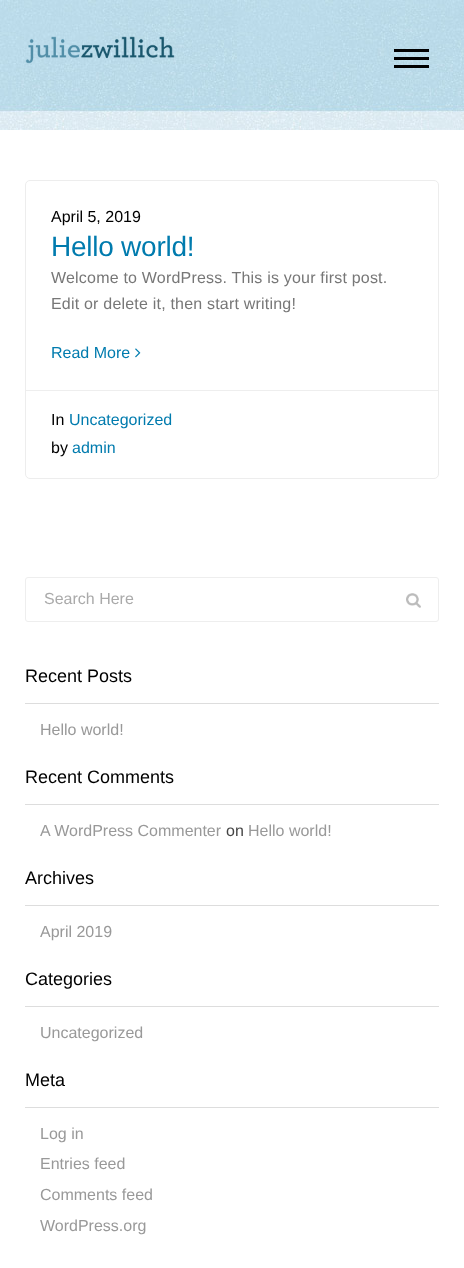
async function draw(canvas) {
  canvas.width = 464;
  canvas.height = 1268;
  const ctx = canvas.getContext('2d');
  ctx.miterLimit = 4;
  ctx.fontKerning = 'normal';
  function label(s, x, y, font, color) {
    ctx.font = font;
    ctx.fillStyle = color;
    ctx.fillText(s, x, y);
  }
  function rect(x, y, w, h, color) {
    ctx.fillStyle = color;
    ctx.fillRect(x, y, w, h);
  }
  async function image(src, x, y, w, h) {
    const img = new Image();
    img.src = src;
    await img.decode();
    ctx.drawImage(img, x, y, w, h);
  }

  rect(0, 0, 464, 1268, '#fff');
  await image('assets/img1.png', 0, 0, 464, 130);
  await image('assets/img2.png', 25, 36, 150, 28);
  rect(394, 49, 35, 3, '#000');
  rect(394, 57, 35, 3, '#000');
  rect(394, 65, 35, 3, '#000');
  ctx.beginPath();
  ctx.roundRect(25.5, 180.5, 413, 298, 4.5);
  ctx.strokeStyle = '#ededed';
  ctx.stroke();
  label('April 5, 2019', 51, 222, '16px Liberation Sans', '#000');
  ctx.letterSpacing = '-0.25px';
  label('Hello world!', 51, 256, '28px Liberation Sans', '#007bae');
  ctx.letterSpacing = '0.2px';
  label('Welcome to WordPress. This is your first post.', 51, 283, '16px Liberation Sans', '#777');
  label('Edit or delete it, then start writing!', 51, 309, '16px Liberation Sans', '#777');
  ctx.letterSpacing = '0px';
  label('Read More', 51, 358, '16px Liberation Sans', '#007bae');
  await image('assets/img3.png', 135, 348, 6, 10);
  rect(26, 390, 412, 1, '#eee');
  label('In', 51, 425, '16px Liberation Sans', '#000');
  label('Uncategorized', 69, 425, '16px Liberation Sans', '#007bae');
  label('by', 51, 453, '16px Liberation Sans', '#000');
  label('admin', 72, 453, '16px Liberation Sans', '#007bae');
  ctx.beginPath();
  ctx.roundRect(25.5, 577.5, 413, 44, 2.5);
  ctx.strokeStyle = '#eee';
  ctx.stroke();
  label('Search Here', 44, 604, '16px Liberation Sans', '#aaa');
  await image('assets/img4.png', 406, 593, 15, 15);
  rect(25, 703, 414, 1, '#ddd');
  label('Recent Posts', 25, 682, '18px Liberation Sans', '#000');
  label('Hello world!', 40, 735, '16px Liberation Sans', '#999');
  rect(25, 804, 414, 1, '#ddd');
  label('Recent Comments', 25, 783, '18px Liberation Sans', '#000');
  label('A WordPress Commenter', 40, 836, '16px Liberation Sans', '#999');
  label('on', 226, 836, '16px Liberation Sans', '#444');
  label('Hello world!', 248, 836, '16px Liberation Sans', '#999');
  rect(25, 905, 414, 1, '#ddd');
  label('Archives', 25, 884, '18px Liberation Sans', '#000');
  label('April 2019', 40, 937, '16px Liberation Sans', '#999');
  rect(25, 1006, 414, 1, '#ddd');
  label('Categories', 25, 985, '18px Liberation Sans', '#000');
  label('Uncategorized', 40, 1038, '16px Liberation Sans', '#999');
  rect(25, 1107, 414, 1, '#ddd');
  label('Meta', 25, 1086, '18px Liberation Sans', '#000');
  label('Log in', 40, 1139, '16px Liberation Sans', '#999');
  label('Entries feed', 40, 1169, '16px Liberation Sans', '#999');
  label('Comments feed', 40, 1200, '16px Liberation Sans', '#999');
  label('WordPress.org', 40, 1231, '16px Liberation Sans', '#999');
}

draw(document.querySelector('canvas'));
